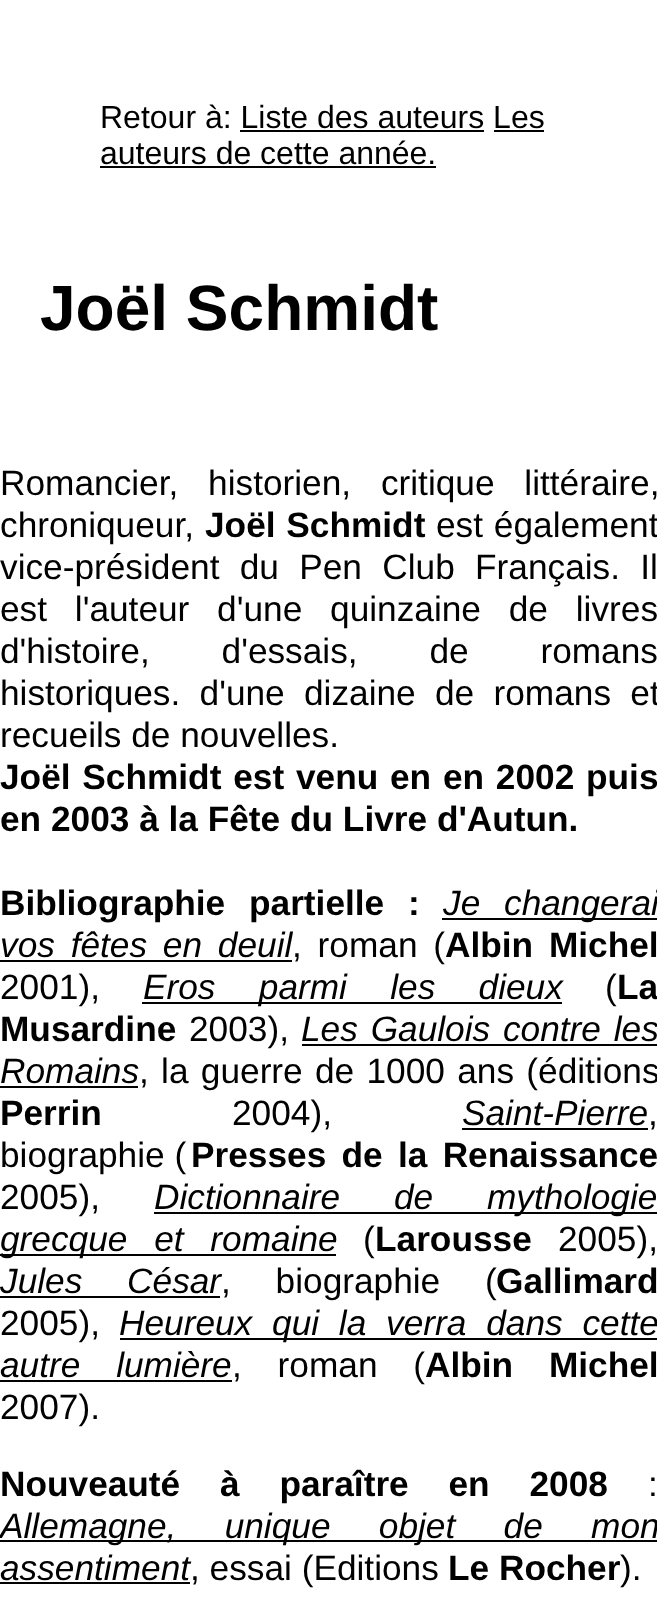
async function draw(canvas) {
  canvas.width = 657;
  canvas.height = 1615;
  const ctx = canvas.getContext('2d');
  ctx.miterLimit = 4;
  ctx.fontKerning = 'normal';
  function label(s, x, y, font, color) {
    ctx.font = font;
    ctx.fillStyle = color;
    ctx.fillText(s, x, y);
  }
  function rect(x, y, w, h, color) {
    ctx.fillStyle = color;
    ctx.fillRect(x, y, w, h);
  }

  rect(0, 0, 657, 1615, '#fff');
  label('Retour à: Liste des auteurs Les', 100, 128, '32px Liberation Sans', '#000');
  rect(240, 130, 244, 2, '#000');
  label('auteurs de cette année.', 100, 164, '32px Liberation Sans', '#000');
  rect(494, 130, 50, 2, '#000');
  rect(100, 166, 336, 2, '#000');
  label('Joël Schmidt', 40, 330, 'bold 64px Liberation Sans', '#000');
  ctx.wordSpacing = '20px';
  label('Romancier, historien, critique littéraire,', 0, 495, '35.25px Liberation Sans', '#000');
  ctx.wordSpacing = '0px';
  label('chroniqueur,', 0, 537, '35.25px Liberation Sans', '#000');
  ctx.wordSpacing = '1px';
  label('Joël Schmidt', 205, 537, 'bold 35.25px Liberation Sans', '#000');
  label('est également', 436, 537, '35.25px Liberation Sans', '#000');
  ctx.wordSpacing = '10.5px';
  label('vice-président du Pen Club Français. Il', 0, 579, '35.25px Liberation Sans', '#000');
  ctx.wordSpacing = '18px';
  label('est l\'auteur d\'une quinzaine de livres', 0, 621, '35.25px Liberation Sans', '#000');
  ctx.wordSpacing = '62px';
  label('d\'histoire, d\'essais, de romans', 0, 663, '35.25px Liberation Sans', '#000');
  ctx.wordSpacing = '9.5px';
  label('historiques. d\'une dizaine de romans et', 0, 705, '35.25px Liberation Sans', '#000');
  ctx.wordSpacing = '0px';
  label('recueils de nouvelles.', 0, 747, '35.25px Liberation Sans', '#000');
  ctx.wordSpacing = '2px';
  label('Joël Schmidt est venu en en 2002 puis', 0, 789, 'bold 35.25px Liberation Sans', '#000');
  ctx.wordSpacing = '0px';
  label('en 2003 à la Fête du Livre d\'Autun.', 0, 831, 'bold 35.25px Liberation Sans', '#000');
  ctx.wordSpacing = '14px';
  label('Bibliographie partielle :', 0, 915, 'bold 35.25px Liberation Sans', '#000');
  rect(442, 918, 215, 2, '#000');
  label('Je changerai', 443, 915, 'italic 35.25px Liberation Sans', '#000');
  ctx.wordSpacing = '6px';
  label('vos fêtes en deuil', 0, 957, 'italic 35.25px Liberation Sans', '#000');
  rect(0, 960, 292, 2, '#000');
  label(', roman (', 292, 957, '35.25px Liberation Sans', '#000');
  label('Albin Michel', 445, 957, 'bold 35.25px Liberation Sans', '#000');
  ctx.wordSpacing = '0px';
  label('2001),', 0, 999, '35.25px Liberation Sans', '#000');
  rect(142, 1002, 420, 2, '#000');
  ctx.wordSpacing = '33.5px';
  label('Eros parmi les dieux', 143, 999, 'italic 35.25px Liberation Sans', '#000');
  ctx.wordSpacing = '0px';
  label('(', 605, 999, '35.25px Liberation Sans', '#000');
  label('La', 617, 999, 'bold 35.25px Liberation Sans', '#000');
  label('Musardine', 0, 1041, 'bold 35.25px Liberation Sans', '#000');
  label('2003),', 189, 1041, '35.25px Liberation Sans', '#000');
  ctx.wordSpacing = '3px';
  label('Les Gaulois contre les', 301, 1041, 'italic 35.25px Liberation Sans', '#000');
  rect(302, 1044, 355, 2, '#000');
  ctx.wordSpacing = '0px';
  label('Romains', 0, 1083, 'italic 35.25px Liberation Sans', '#000');
  rect(0, 1086, 138, 2, '#000');
  ctx.wordSpacing = '2.5px';
  label(', la guerre de 1000 ans (éditions', 139, 1083, '35.25px Liberation Sans', '#000');
  ctx.wordSpacing = '0px';
  label('Perrin', 0, 1125, 'bold 35.25px Liberation Sans', '#000');
  label('2004),', 232, 1125, '35.25px Liberation Sans', '#000');
  label('Saint-Pierre', 462, 1125, 'italic 35.25px Liberation Sans', '#000');
  rect(462, 1128, 186, 2, '#000');
  label(',', 648, 1125, '35.25px Liberation Sans', '#000');
  label('biographie (', 0, 1167, '35.25px Liberation Sans', '#000');
  ctx.wordSpacing = '5.5px';
  label('Presses de la Renaissance', 191, 1167, 'bold 35.25px Liberation Sans', '#000');
  ctx.wordSpacing = '0px';
  label('2005),', 0, 1209, '35.25px Liberation Sans', '#000');
  rect(154, 1212, 503, 2, '#000');
  ctx.wordSpacing = '44px';
  label('Dictionnaire de mythologie', 154, 1209, 'italic 35.25px Liberation Sans', '#000');
  rect(0, 1254, 336, 2, '#000');
  ctx.wordSpacing = '17px';
  label('grecque et romaine', 0, 1251, 'italic 35.25px Liberation Sans', '#000');
  ctx.wordSpacing = '0px';
  label('(', 363, 1251, '35.25px Liberation Sans', '#000');
  label('Larousse', 375, 1251, 'bold 35.25px Liberation Sans', '#000');
  label('2005),', 558, 1251, '35.25px Liberation Sans', '#000');
  ctx.wordSpacing = '35px';
  label('Jules César', 0, 1293, 'italic 35.25px Liberation Sans', '#000');
  rect(0, 1296, 220, 2, '#000');
  label(', biographie (', 221, 1293, '35.25px Liberation Sans', '#000');
  ctx.wordSpacing = '0px';
  label('Gallimard', 496, 1293, 'bold 35.25px Liberation Sans', '#000');
  label('2005),', 0, 1335, '35.25px Liberation Sans', '#000');
  rect(120, 1338, 537, 2, '#000');
  ctx.wordSpacing = '10px';
  label('Heureux qui la verra dans cette', 119, 1335, 'italic 35.25px Liberation Sans', '#000');
  ctx.wordSpacing = '26px';
  label('autre lumière', 0, 1377, 'italic 35.25px Liberation Sans', '#000');
  rect(0, 1380, 232, 2, '#000');
  label(', roman (', 232, 1377, '35.25px Liberation Sans', '#000');
  label('Albin Michel', 425, 1377, 'bold 35.25px Liberation Sans', '#000');
  ctx.wordSpacing = '0px';
  label('2007).', 0, 1419, '35.25px Liberation Sans', '#000');
  ctx.wordSpacing = '30px';
  label('Nouveauté à paraître en 2008', 0, 1496, 'bold 35.25px Liberation Sans', '#000');
  ctx.wordSpacing = '0px';
  label(':', 648, 1496, '35.25px Liberation Sans', '#000');
  rect(0, 1540, 657, 2, '#000');
  ctx.wordSpacing = '38.5px';
  label('Allemagne, unique objet de mon', 0, 1538, 'italic 35.25px Liberation Sans', '#000');
  ctx.wordSpacing = '0px';
  label('assentiment', 0, 1580, 'italic 35.25px Liberation Sans', '#000');
  rect(0, 1582, 190, 2, '#000');
  label(', essai (Editions', 190, 1580, '35.25px Liberation Sans', '#000');
  label('Le Rocher', 448, 1580, 'bold 35.25px Liberation Sans', '#000');
  label(').', 620, 1580, '35.25px Liberation Sans', '#000');
}

draw(document.querySelector('canvas'));
